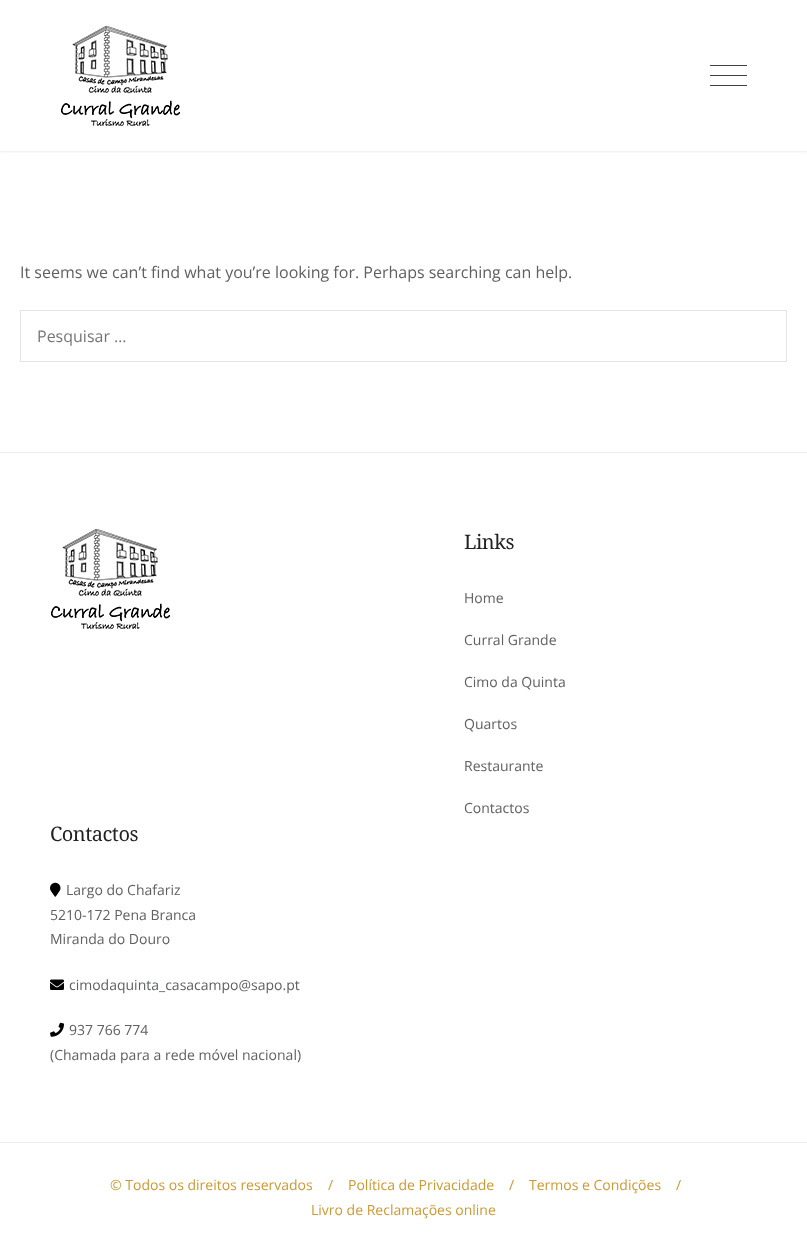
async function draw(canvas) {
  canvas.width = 807;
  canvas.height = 1233;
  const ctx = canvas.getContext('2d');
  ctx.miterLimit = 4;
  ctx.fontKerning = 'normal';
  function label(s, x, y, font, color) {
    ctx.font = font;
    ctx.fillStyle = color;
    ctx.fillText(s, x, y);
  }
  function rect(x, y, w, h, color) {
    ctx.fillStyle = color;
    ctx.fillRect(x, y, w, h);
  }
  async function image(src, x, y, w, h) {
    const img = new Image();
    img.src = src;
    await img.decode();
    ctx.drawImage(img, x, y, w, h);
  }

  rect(0, 0, 807, 1233, '#fff');
  ctx.fillStyle = '#5050501a';
  ctx.filter = 'blur(1px)';
  ctx.beginPath();
  ctx.rect(0, 1, 807, 151);
  ctx.fill();
  ctx.filter = 'none';
  rect(0, 0, 807, 151, '#fff');
  await image('assets/img1.png', 61, 26, 119, 100);
  rect(710, 65, 37, 1, '#404040');
  rect(710, 75, 37, 1, '#404040');
  rect(710, 85, 37, 1, '#404040');
  label('It seems we can’t find what you’re looking for. Perhaps searching can help.', 20, 278, '16px Open Sans', '#5f6060');
  ctx.strokeStyle = '#e4e4e4';
  ctx.strokeRect(20.5, 310.5, 766, 51);
  label('Pesquisar …', 37, 342, '16px Open Sans', '#757575');
  rect(0, 452, 807, 1, '#ededed');
  await image('assets/img1.png', 51, 529, 119, 100);
  ctx.letterSpacing = '-0.5px';
  label('Links', 464, 549, '20px Noto Serif', '#222');
  ctx.letterSpacing = '0px';
  label('Home', 464, 603, '14px Open Sans', '#5f6060');
  label('Curral Grande', 464, 645, '14px Open Sans', '#5f6060');
  label('Cimo da Quinta', 464, 687, '14px Open Sans', '#5f6060');
  label('Quartos', 464, 729, '14px Open Sans', '#5f6060');
  label('Restaurante', 464, 771, '14px Open Sans', '#5f6060');
  label('Contactos', 464, 813, '14px Open Sans', '#5f6060');
  ctx.letterSpacing = '-0.5px';
  label('Contactos', 50, 841, '20px Noto Serif', '#222');
  await image('assets/img2.png', 50, 882, 11, 15);
  ctx.letterSpacing = '0px';
  label('Largo do Chafariz', 66, 895, '14px Open Sans', '#5f6060');
  label('5210-172 Pena Branca', 50, 920, '14px Open Sans', '#5f6060');
  label('Miranda do Douro', 50, 944, '14px Open Sans', '#5f6060');
  await image('assets/img3.png', 50, 979, 14, 11);
  label('cimodaquinta_casacampo@sapo.pt', 69, 990, '14px Open Sans', '#5f6060');
  await image('assets/img4.png', 50, 1022, 14, 15);
  label('937 766 774', 69, 1035, '14px Open Sans', '#5f6060');
  label('(Chamada para a rede móvel nacional)', 50, 1060, '14px Open Sans', '#5f6060');
  rect(0, 1142, 807, 1, '#ededed');
  label('© Todos os direitos reservados', 110, 1190, '14px Open Sans', '#cc9932');
  label('/', 328, 1190, '14px Open Sans', '#cc9932');
  label('Política de Privacidade', 348, 1190, '14px Open Sans', '#cc9932');
  label('/', 509, 1190, '14px Open Sans', '#cc9932');
  label('Termos e Condições', 529, 1190, '14px Open Sans', '#cc9932');
  label('/', 676, 1190, '14px Open Sans', '#cc9932');
  label('Livro de Reclamações online', 311, 1215, '14px Open Sans', '#cc9932');
}

draw(document.querySelector('canvas'));
